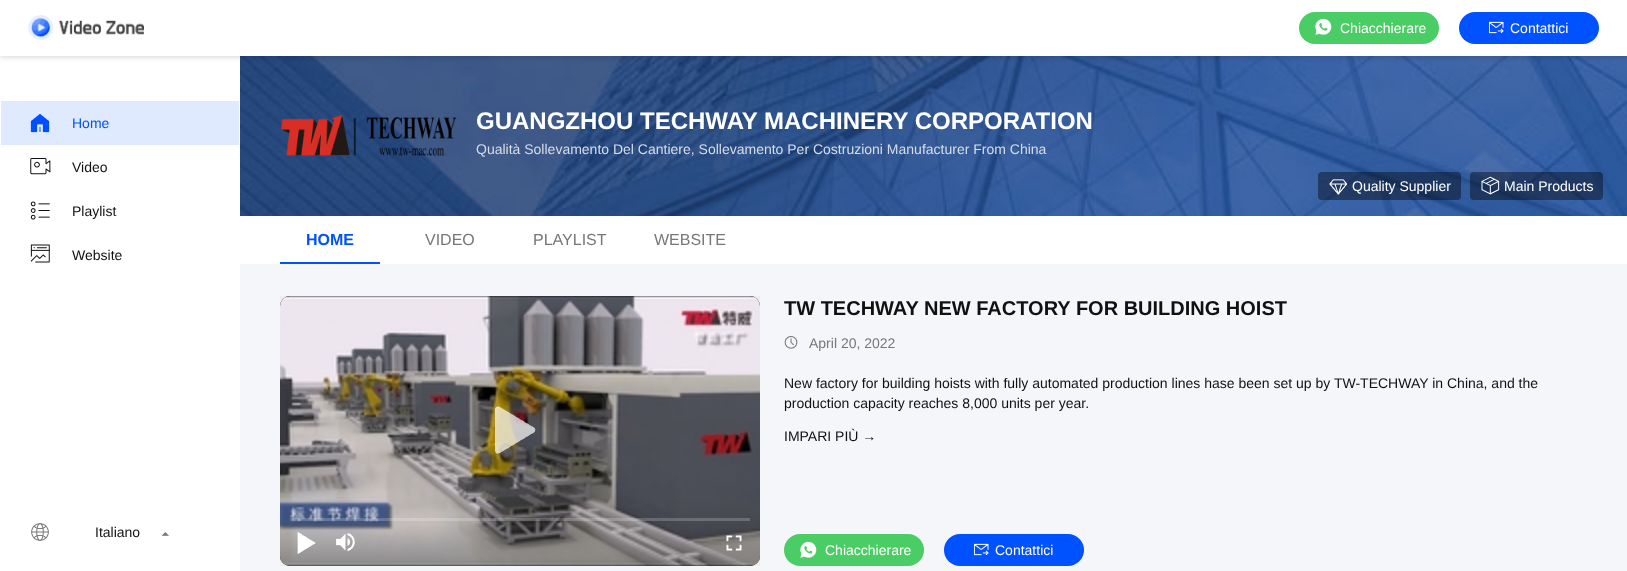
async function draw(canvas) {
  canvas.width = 1627;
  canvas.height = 571;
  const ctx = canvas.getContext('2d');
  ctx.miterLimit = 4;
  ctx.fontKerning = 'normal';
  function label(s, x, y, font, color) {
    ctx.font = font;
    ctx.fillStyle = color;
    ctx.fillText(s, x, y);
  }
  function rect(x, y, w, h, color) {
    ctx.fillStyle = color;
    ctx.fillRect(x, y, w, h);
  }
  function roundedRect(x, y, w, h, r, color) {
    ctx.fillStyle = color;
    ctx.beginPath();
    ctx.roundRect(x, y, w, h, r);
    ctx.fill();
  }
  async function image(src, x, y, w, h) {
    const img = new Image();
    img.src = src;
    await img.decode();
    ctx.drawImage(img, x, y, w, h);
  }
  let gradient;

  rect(0, 0, 1627, 571, '#fff');
  await image('assets/img10.png', 240, 56, 1387, 160);
  ctx.fillStyle = '#0000001f';
  ctx.filter = 'blur(2px)';
  ctx.beginPath();
  ctx.rect(0, 2, 1627, 56);
  ctx.fill();
  ctx.filter = 'none';
  rect(0, 0, 1627, 56, '#fff');
  await image('assets/img1.png', 28, 15, 116, 25);
  roundedRect(1299, 12, 140, 32, 16, '#4bcd65');
  await image('assets/img2.png', 1315, 18, 17, 17);
  label('Chiacchierare', 1340, 33, '14px Liberation Sans', '#fff');
  roundedRect(1459, 12, 140, 32, 16, '#0051ff');
  await image('assets/img3.png', 1489, 21, 15, 13);
  label('Contattici', 1510, 33, '14px Liberation Sans', '#fff');
  rect(1, 101, 238, 44, '#e0eaff');
  await image('assets/img4.png', 30, 114, 20, 19);
  label('Home', 72, 128, '14px Liberation Sans', '#0051ff');
  await image('assets/img5.png', 30, 158, 21, 17);
  label('Video', 72, 172, '14px Liberation Sans', '#111');
  await image('assets/img6.png', 30, 201, 20, 19);
  label('Playlist', 72, 216, '14px Liberation Sans', '#111');
  await image('assets/img7.png', 30, 244, 20, 19);
  label('Website', 72, 260, '14px Liberation Sans', '#111');
  await image('assets/img8.png', 31, 523, 18, 18);
  label('Italiano', 95, 537, '14px Liberation Sans', '#111');
  await image('assets/img9.png', 161, 532, 9, 4);
  rect(240, 264, 1387, 307, '#f4f6f9');
  await image('assets/img11.png', 280, 115, 177, 41);
  label('GUANGZHOU TECHWAY MACHINERY CORPORATION', 476, 129, 'bold 24px Liberation Sans', '#fff');
  label('Qualità Sollevamento Del Cantiere, Sollevamento Per Costruzioni Manufacturer From China', 476, 154, '14px Liberation Sans', '#d6dde8');
  roundedRect(1318, 172, 143, 28, 4, '#00000066');
  await image('assets/img12.png', 1329, 179, 19, 16);
  label('Quality Supplier', 1352, 191, '14px Liberation Sans', '#fff');
  roundedRect(1470, 172, 133, 28, 4, '#00000066');
  await image('assets/img13.png', 1481, 176, 19, 19);
  label('Main Products', 1504, 191, '14px Liberation Sans', '#fff');
  label('HOME', 306, 245, 'bold 16px Liberation Sans', '#0051ff');
  rect(280, 262, 100, 2, '#0051ff');
  label('VIDEO', 425, 245, '16px Liberation Sans', '#777');
  label('PLAYLIST', 533, 245, '16px Liberation Sans', '#777');
  label('WEBSITE', 654, 245, '16px Liberation Sans', '#777');
  rect(280, 296, 480, 270, '#eee');
  roundedRect(280, 296, 480, 270, 10, '#000');
  await image('assets/img14.png', 280, 296, 480, 270);
  await image('assets/img15.png', 495, 406, 41, 48);
  gradient = ctx.createLinearGradient(520, 566, 520, 496);
  gradient.addColorStop(0.05, '#0e0e0d4d');
  gradient.addColorStop(0.6, '#0e0e0e0d');
  gradient.addColorStop(1, '#0e0e0e00');
  ctx.fillStyle = gradient;
  ctx.beginPath();
  ctx.roundRect(280, 496, 480, 70, [0, 0, 10, 10]);
  ctx.fill();
  rect(290, 518, 460, 3, '#ffffff33');
  await image('assets/img16.png', 297, 531, 19, 23);
  await image('assets/img17.png', 336, 533, 19, 18);
  await image('assets/img18.png', 726, 535, 16, 16);
  label('TW TECHWAY NEW FACTORY FOR BUILDING HOIST', 784, 315, 'bold 20px Liberation Sans', '#111');
  await image('assets/img19.png', 784, 336, 14, 13);
  label('April 20, 2022', 809, 348, '14px Liberation Sans', '#777');
  label('New factory for building hoists with fully automated production lines hase been set up by TW-TECHWAY in China, and the', 784, 388, '14px Liberation Sans', '#111');
  label('production capacity reaches 8,000 units per year.', 784, 408, '14px Liberation Sans', '#111');
  label('IMPARI PIÙ →', 784, 441, '14px Liberation Sans', '#111');
  roundedRect(784, 534, 140, 32, 16, '#4bcd65');
  await image('assets/img2.png', 800, 541, 17, 17);
  label('Chiacchierare', 825, 555, '14px Liberation Sans', '#fff');
  roundedRect(944, 534, 140, 32, 16, '#0051ff');
  await image('assets/img3.png', 974, 543, 15, 13);
  label('Contattici', 995, 555, '14px Liberation Sans', '#fff');
}

draw(document.querySelector('canvas'));
